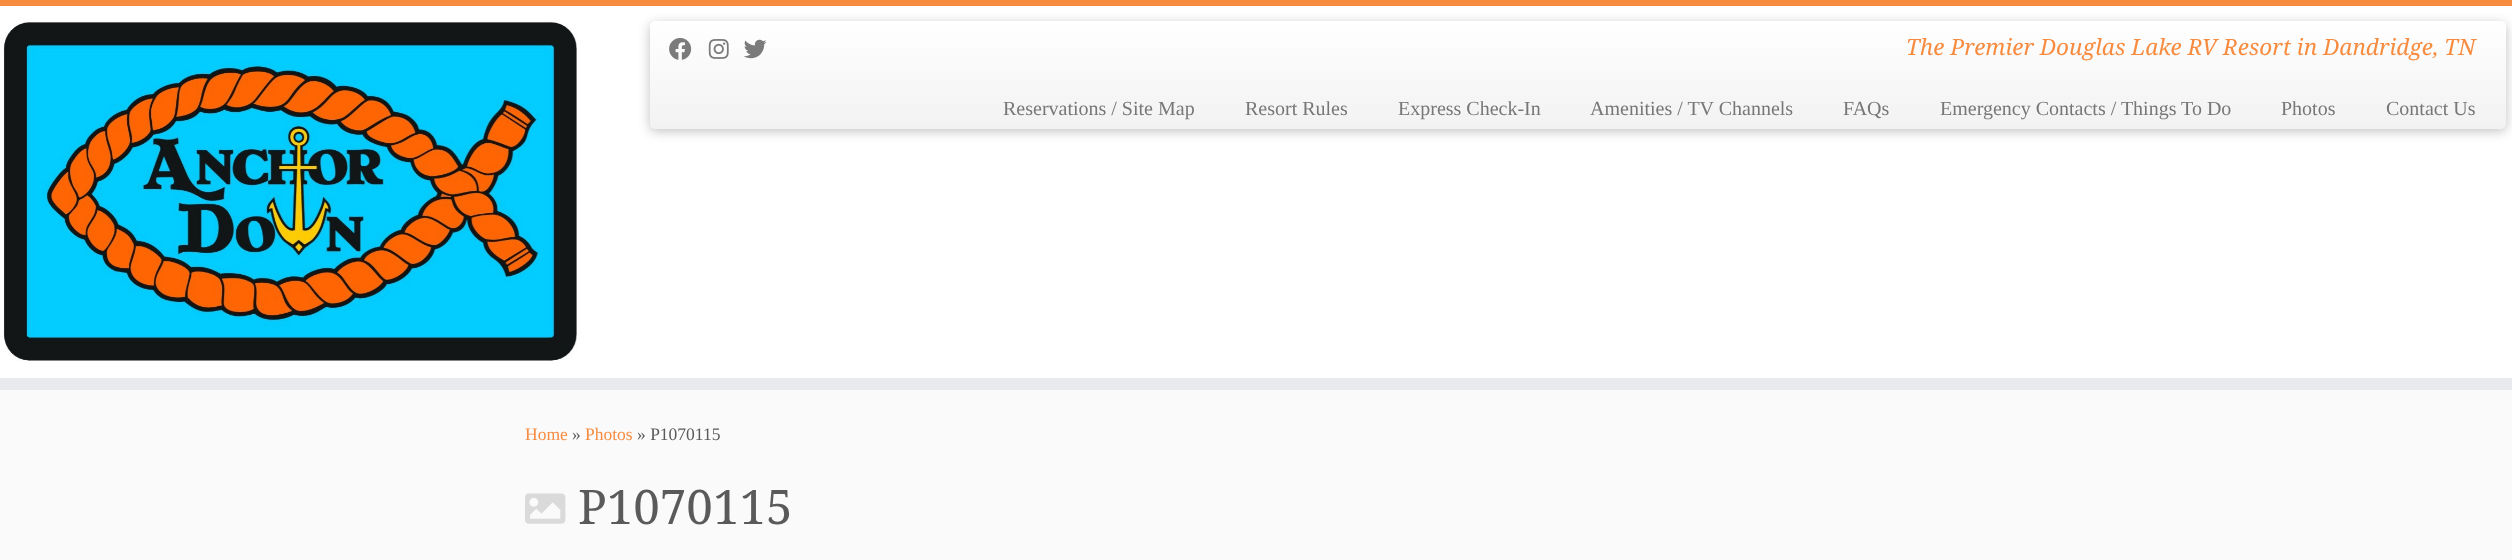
async function draw(canvas) {
  canvas.width = 2512;
  canvas.height = 560;
  const ctx = canvas.getContext('2d');
  ctx.miterLimit = 4;
  ctx.fontKerning = 'normal';
  function label(s, x, y, font, color) {
    ctx.font = font;
    ctx.fillStyle = color;
    ctx.fillText(s, x, y);
  }
  function rect(x, y, w, h, color) {
    ctx.fillStyle = color;
    ctx.fillRect(x, y, w, h);
  }
  async function image(src, x, y, w, h) {
    const img = new Image();
    img.src = src;
    await img.decode();
    ctx.drawImage(img, x, y, w, h);
  }
  let gradient;

  rect(0, 0, 2512, 560, '#fafafa');
  rect(0, 6, 2512, 372, '#fff');
  rect(0, 0, 2512, 6, '#f78c40');
  rect(0, 378, 2512, 12, '#e9eaee');
  await image('assets/img1.png', 3, 19, 574, 342);
  ctx.fillStyle = '#00000040';
  ctx.filter = 'blur(6px)';
  ctx.beginPath();
  ctx.roundRect(650, 24, 1856, 107, 5);
  ctx.fill();
  ctx.filter = 'none';
  gradient = ctx.createLinearGradient(1578, 21, 1578, 129);
  gradient.addColorStop(0, '#fff');
  gradient.addColorStop(1, '#f2f2f2');
  ctx.fillStyle = gradient;
  ctx.beginPath();
  ctx.roundRect(650, 21, 1856, 108, 5);
  ctx.fill();
  await image('assets/img2.png', 669, 38, 23, 22);
  await image('assets/img3.png', 708, 39, 21, 20);
  await image('assets/img4.png', 744, 39, 23, 20);
  label('The Premier Douglas Lake RV Resort in Dandridge, TN', 1906, 55, 'italic 22.5px Noto Serif', '#f78c40');
  label('Reservations / Site Map', 1003, 115, '20px Liberation Serif', '#777');
  label('Resort Rules', 1245, 115, '20px Liberation Serif', '#777');
  label('Express Check-In', 1398, 115, '20px Liberation Serif', '#777');
  label('Amenities / TV Channels', 1590, 115, '20px Liberation Serif', '#777');
  label('FAQs', 1843, 115, '20px Liberation Serif', '#777');
  label('Emergency Contacts / Things To Do', 1940, 115, '20px Liberation Serif', '#777');
  label('Photos', 2281, 115, '20px Liberation Serif', '#777');
  label('Contact Us', 2386, 115, '20px Liberation Serif', '#777');
  label('Home', 525, 440, '17.5px Liberation Serif', '#f78c40');
  label('»', 572, 440, '17.5px Liberation Serif', '#5a5a5a');
  label('Photos', 585, 440, '17.5px Liberation Serif', '#f78c40');
  label('» P1070115', 637, 440, '17.5px Liberation Serif', '#5a5a5a');
  await image('assets/img5.png', 525, 493, 41, 31);
  label('P1070115', 578, 524, '47.5px Noto Serif', '#5a5a5a');
}

draw(document.querySelector('canvas'));
